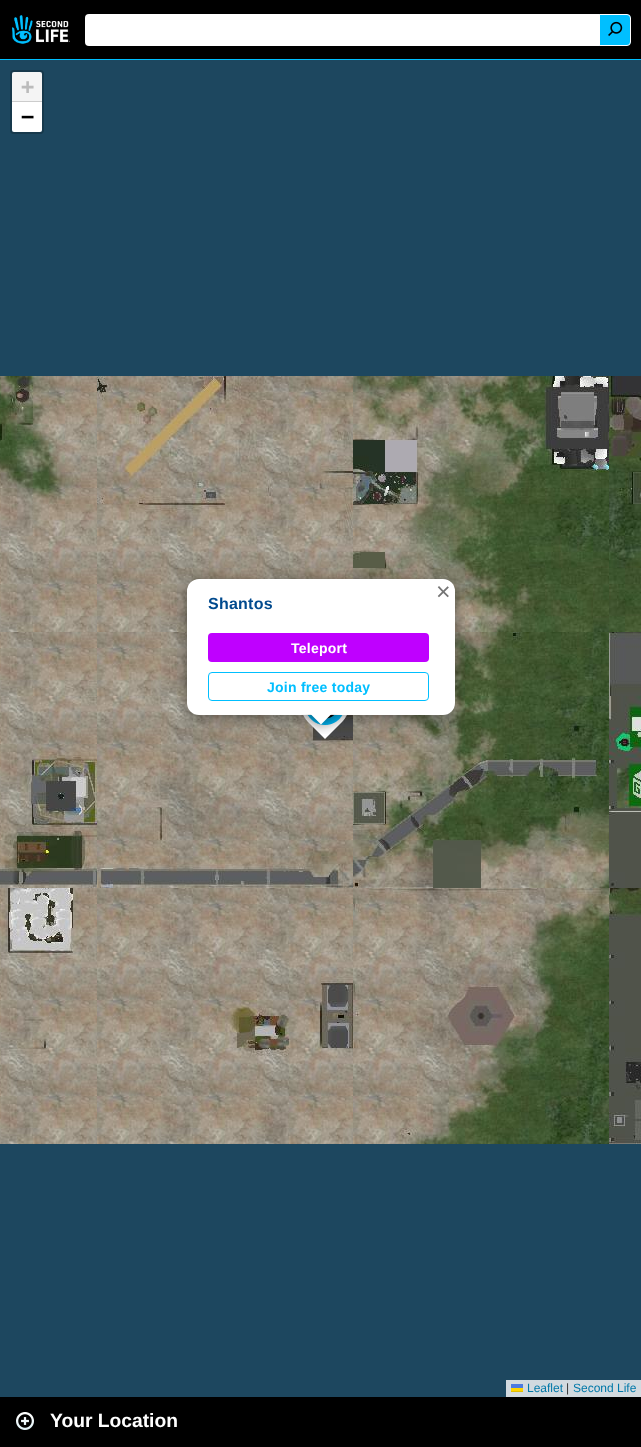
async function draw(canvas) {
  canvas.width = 641;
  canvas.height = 1447;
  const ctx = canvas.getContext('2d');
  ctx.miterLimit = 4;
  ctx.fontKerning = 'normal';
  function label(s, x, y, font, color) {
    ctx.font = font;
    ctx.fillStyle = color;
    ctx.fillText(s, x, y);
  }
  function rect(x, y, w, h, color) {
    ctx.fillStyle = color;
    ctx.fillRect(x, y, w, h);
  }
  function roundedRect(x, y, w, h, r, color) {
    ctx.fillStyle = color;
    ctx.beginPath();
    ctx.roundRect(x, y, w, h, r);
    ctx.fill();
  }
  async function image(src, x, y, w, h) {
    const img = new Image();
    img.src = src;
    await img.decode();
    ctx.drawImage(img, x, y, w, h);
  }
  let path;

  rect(0, 0, 641, 1447, '#000');
  rect(0, 59, 641, 1, '#00bfff');
  await image('assets/img1.png', 12, 15, 58, 29);
  ctx.fillStyle = '#fff';
  ctx.beginPath();
  ctx.roundRect(85, 14, 518, 32, [4, 0, 0, 4]);
  ctx.fill();
  ctx.fillStyle = '#00bfff';
  ctx.beginPath();
  ctx.roundRect(599.5, 14.5, 31, 31, [0, 3.5, 3.5, 0]);
  ctx.fill();
  ctx.strokeStyle = '#fff';
  ctx.stroke();
  await image('assets/img2.png', 608, 21, 15, 15);
  rect(0, 60, 641, 1337, '#1d475f');
  ctx.beginPath();
  ctx.roundRect(11, 71, 32, 62, 3);
  ctx.strokeStyle = '#17394c';
  ctx.lineWidth = 2;
  ctx.stroke();
  ctx.fillStyle = '#f4f4f4';
  ctx.beginPath();
  ctx.roundRect(12, 72, 30, 30, [2, 2, 0, 0]);
  ctx.fill();
  rect(12, 101, 30, 1, '#ccc');
  label('+', 21, 94, 'bold 22px DejaVu Sans Mono', '#bbb');
  ctx.fillStyle = '#fff';
  ctx.beginPath();
  ctx.roundRect(12, 102, 30, 30, [0, 0, 2, 2]);
  ctx.fill();
  label('−', 21, 124, 'bold 22px DejaVu Sans Mono', '#000');
  rect(506, 1380, 135, 17, '#d2dadf');
  label('Leaflet', 527, 1392, '12px Liberation Sans', '#0078a8');
  rect(511, 1384, 12, 4, '#4c7be1');
  rect(511, 1388, 12, 3, '#ffd500');
  rect(511, 1391, 12, 1, '#e0bc00');
  label('|', 566, 1392, '12px Liberation Sans', '#333');
  label('Second Life', 573, 1392, '12px Liberation Sans', '#0078a8');
  await image('assets/img3.png', 0, 376, 97, 256);
  await image('assets/img4.png', 97, 376, 256, 256);
  await image('assets/img5.png', 353, 376, 256, 256);
  await image('assets/img6.png', 609, 376, 32, 256);
  await image('assets/img7.png', 0, 632, 97, 256);
  await image('assets/img8.png', 97, 632, 256, 256);
  await image('assets/img9.png', 353, 632, 256, 256);
  await image('assets/img10.png', 609, 632, 32, 256);
  await image('assets/img11.png', 0, 888, 97, 256);
  await image('assets/img12.png', 97, 888, 256, 256);
  await image('assets/img13.png', 353, 888, 256, 256);
  await image('assets/img14.png', 609, 888, 32, 256);
  await image('assets/img15.png', 303, 715, 44, 24);
  ctx.fillStyle = '#00000066';
  ctx.filter = 'blur(7px)';
  ctx.beginPath();
  ctx.roundRect(187, 582, 268, 136, 12);
  ctx.fill();
  ctx.filter = 'none';
  roundedRect(187, 579, 268, 136, 12, '#fff');
  label('×', 436, 600, '25px Liberation Sans', '#757575');
  ctx.letterSpacing = '0.25px';
  label('Shantos', 208, 609, 'bold 16px Liberation Sans', '#014a8e');
  roundedRect(208, 633, 221, 29, 4, '#bf00ff');
  label('Teleport', 291, 653, 'bold 14px Liberation Sans', '#fff');
  ctx.beginPath();
  ctx.roundRect(208.5, 672.5, 220, 28, 3.5);
  ctx.strokeStyle = '#00bfff';
  ctx.lineWidth = 1;
  ctx.stroke();
  label('Join free today', 267, 692, 'bold 14px Liberation Sans', '#00bfff');
  ctx.save();
  ctx.beginPath();
  ctx.rect(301, 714, 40, 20);
  ctx.clip();
  ctx.fillStyle = '#00000066';
  ctx.filter = 'blur(7px)';
  ctx.beginPath();
  ctx.rect(313, 707, 17, 17);
  ctx.fill();
  ctx.filter = 'none';
  ctx.restore();
  ctx.save();
  ctx.beginPath();
  ctx.rect(301, 714, 40, 20);
  ctx.clip();
  ctx.fillStyle = '#fff';
  path = new Path2D('M321 700.5L333 712.5L321 724.5L309 712.5Z');
  ctx.fill(path);
  ctx.restore();
  await image('assets/img16.png', 16, 1412, 18, 18);
  ctx.letterSpacing = '0px';
  label('Your Location', 50, 1427, 'bold 19.25px Liberation Sans', '#fff');
}

draw(document.querySelector('canvas'));
